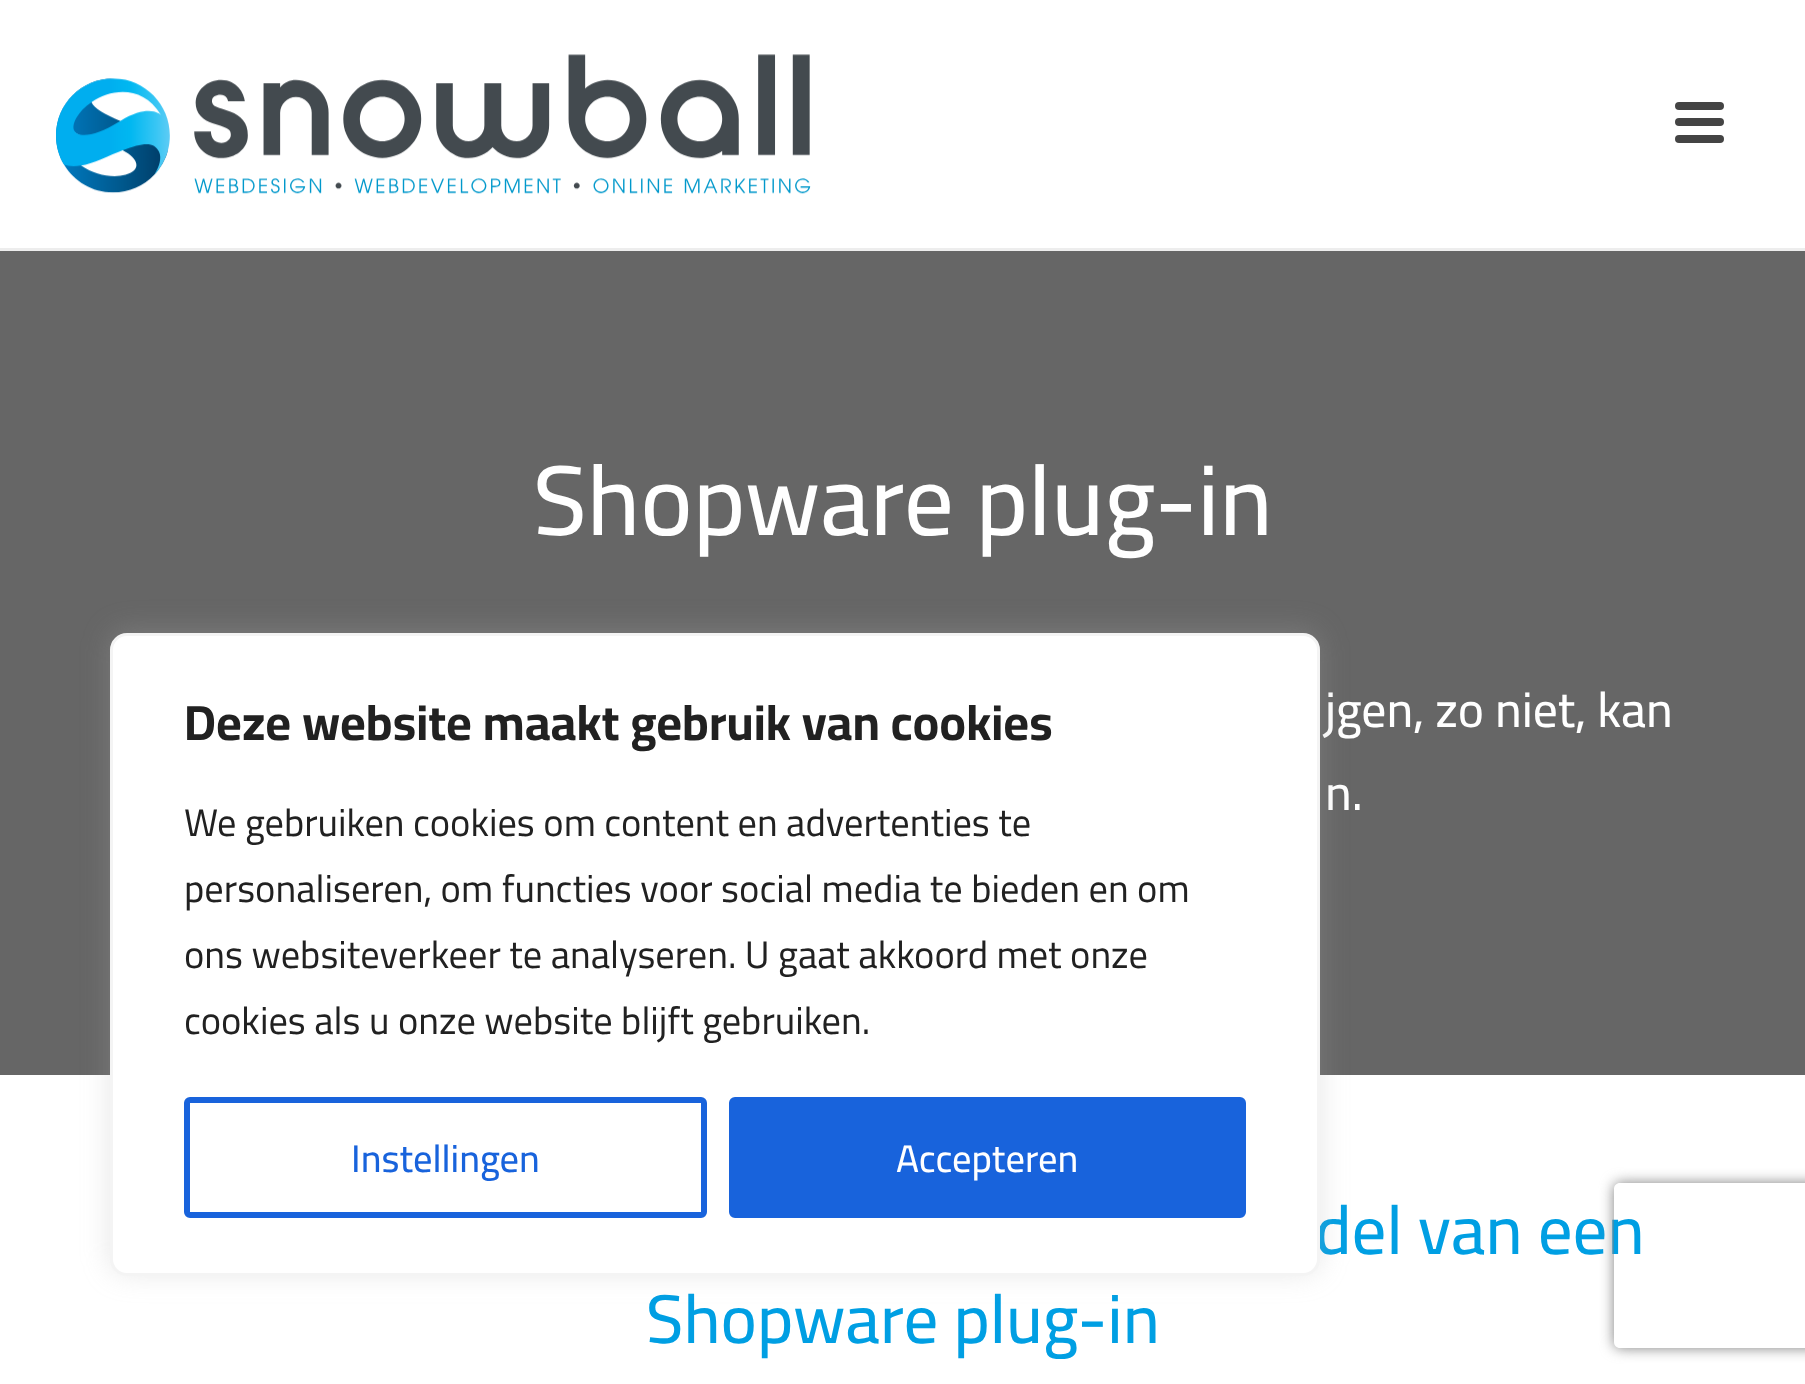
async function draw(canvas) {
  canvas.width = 1805;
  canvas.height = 1384;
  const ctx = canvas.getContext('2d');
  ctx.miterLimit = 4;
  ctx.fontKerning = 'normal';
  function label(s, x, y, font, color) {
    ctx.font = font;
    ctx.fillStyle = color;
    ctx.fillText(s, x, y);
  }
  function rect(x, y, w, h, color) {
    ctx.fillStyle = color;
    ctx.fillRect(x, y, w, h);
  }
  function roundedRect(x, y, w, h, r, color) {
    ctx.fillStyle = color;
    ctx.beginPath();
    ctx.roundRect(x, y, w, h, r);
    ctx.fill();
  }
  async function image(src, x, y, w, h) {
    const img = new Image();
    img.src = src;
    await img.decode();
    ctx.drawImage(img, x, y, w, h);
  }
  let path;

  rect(0, 0, 1805, 1384, '#fff');
  rect(0, 248, 1805, 3, '#ededed');
  await image('assets/img1.png', 56, 54, 755, 140);
  roundedRect(1675, 102, 49, 8, 4, '#444');
  roundedRect(1675, 118, 49, 8, 4, '#444');
  roundedRect(1675, 135, 49, 8, 4, '#444');
  rect(0, 251, 1805, 824, '#666');
  label('Shopware plug-in', 533, 535, '500 99px Cairo', '#fff');
  label('jgen, zo niet, kan', 1325, 727, '500 49.5px Cairo', '#fff');
  label('n.', 1325, 810, '500 49.5px Cairo', '#fff');
  label('del van een', 1315, 1254, '500 68.75px Cairo', '#009fe3');
  label('Shopware plug-in', 646, 1343, '500 68.75px Cairo', '#009fe3');
  ctx.fillStyle = '#acabab4d';
  ctx.filter = 'blur(14px)';
  ctx.beginPath();
  ctx.roundRect(110, 630, 1210, 643, 17);
  ctx.fill();
  ctx.filter = 'none';
  ctx.fillStyle = '#fff';
  ctx.beginPath();
  ctx.roundRect(111.5, 634.5, 1207, 640, 15.5);
  ctx.fill();
  ctx.strokeStyle = '#f4f4f4';
  ctx.lineWidth = 3;
  ctx.stroke();
  label('Deze website maakt gebruik van cookies', 184, 740, 'bold 49.5px Cairo', '#212121');
  label('We gebruiken cookies om content en advertenties te', 184, 836, '38.5px Cairo', '#212121');
  label('personaliseren, om functies voor social media te bieden en om', 184, 902, '38.5px Cairo', '#212121');
  label('ons websiteverkeer te analyseren. U gaat akkoord met onze', 184, 968, '38.5px Cairo', '#212121');
  label('cookies als u onze website blijft gebruiken.', 184, 1034, '38.5px Cairo', '#212121');
  ctx.beginPath();
  ctx.roundRect(187, 1100, 517, 115, 3);
  ctx.strokeStyle = '#1863dc';
  ctx.lineWidth = 6;
  ctx.stroke();
  label('Instellingen', 351, 1172, '500 38.5px Cairo', '#1863dc');
  ctx.beginPath();
  ctx.roundRect(732, 1100, 511, 115, 3);
  ctx.fill();
  ctx.stroke();
  label('Accepteren', 896, 1172, '500 38.5px Cairo', '#fff');
  ctx.save();
  path = new Path2D('M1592 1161H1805V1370H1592ZM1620 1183H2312C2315.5 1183 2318 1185.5 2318 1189V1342C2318 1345.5 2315.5 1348 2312 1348H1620C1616.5 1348 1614 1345.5 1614 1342V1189C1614 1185.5 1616.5 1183 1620 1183Z');
  ctx.clip(path, 'evenodd');
  ctx.fillStyle = '#808080';
  ctx.filter = 'blur(7px)';
  ctx.beginPath();
  ctx.roundRect(1614, 1183, 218, 165, 6);
  ctx.fill();
  ctx.filter = 'none';
  ctx.restore();
}

draw(document.querySelector('canvas'));
